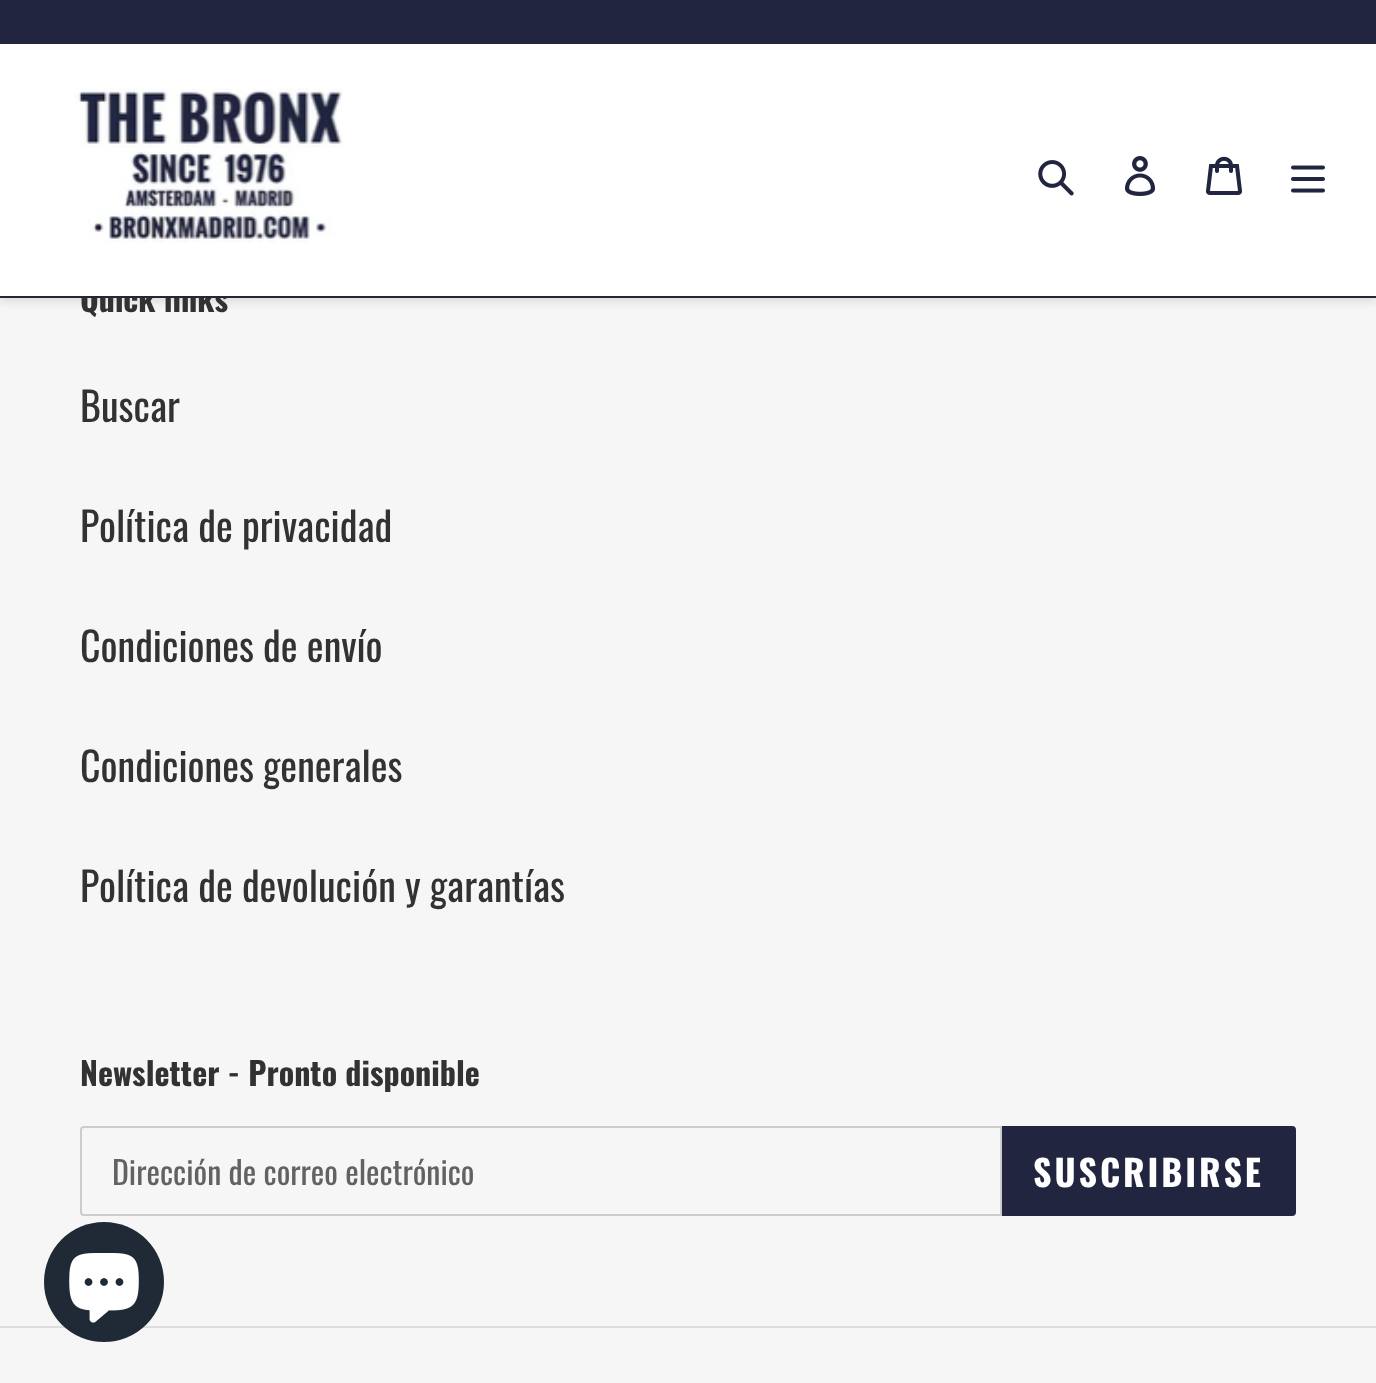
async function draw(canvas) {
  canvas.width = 1376;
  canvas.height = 1383;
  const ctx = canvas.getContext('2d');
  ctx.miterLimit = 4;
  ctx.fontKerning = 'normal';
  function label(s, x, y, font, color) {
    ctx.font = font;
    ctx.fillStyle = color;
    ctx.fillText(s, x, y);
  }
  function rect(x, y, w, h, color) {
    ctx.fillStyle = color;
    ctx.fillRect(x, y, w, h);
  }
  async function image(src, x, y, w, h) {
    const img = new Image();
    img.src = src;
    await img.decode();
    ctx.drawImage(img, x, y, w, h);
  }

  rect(0, 0, 1376, 1383, '#f6f6f6');
  ctx.fillStyle = '#0000001a';
  ctx.filter = 'blur(4px)';
  ctx.beginPath();
  ctx.rect(0, 4, 1376, 298);
  ctx.fill();
  ctx.filter = 'none';
  label('Quick links', 80, 312, 'bold 32px Oswald', '#333232');
  rect(0, 44, 1376, 252, '#fff');
  rect(0, 0, 1376, 44, '#212540');
  rect(0, 296, 1376, 2, '#212540');
  await image('assets/img1.png', 75, 88, 268, 155);
  await image('assets/img2.png', 1038, 160, 36, 36);
  await image('assets/img3.png', 1125, 156, 31, 40);
  await image('assets/img4.png', 1206, 156, 36, 39);
  await image('assets/img5.png', 1291, 165, 34, 28);
  label('Buscar', 80, 422, '40px Oswald', '#333232');
  label('Política de privacidad', 80, 542, '40px Oswald', '#333232');
  label('Condiciones de envío', 80, 662, '40px Oswald', '#333232');
  label('Condiciones generales', 80, 782, '40px Oswald', '#333232');
  label('Política de devolución y garantías', 80, 902, '40px Oswald', '#333232');
  label('Newsletter - Pronto disponible', 80, 1086, 'bold 32px Oswald', '#333232');
  ctx.beginPath();
  ctx.roundRect(81, 1127, 920, 88, [3, 0, 0, 3]);
  ctx.strokeStyle = '#ccc';
  ctx.lineWidth = 2;
  ctx.stroke();
  label('Dirección de correo electrónico', 112, 1185, '32px Oswald', '#626262');
  ctx.fillStyle = '#212540';
  ctx.beginPath();
  ctx.roundRect(1002, 1126, 294, 90, [0, 4, 4, 0]);
  ctx.fill();
  ctx.letterSpacing = '2.9px';
  label('SUSCRIBIRSE', 1033, 1187, 'bold 36px Oswald', '#fff');
  rect(0, 1326, 1376, 2, '#ddd');
  ctx.fillStyle = '#202a36';
  ctx.beginPath();
  ctx.arc(104, 1282, 60, 0, 2 * Math.PI);
  ctx.fill();
  await image('assets/img6.png', 69, 1253, 70, 70);
}

draw(document.querySelector('canvas'));
